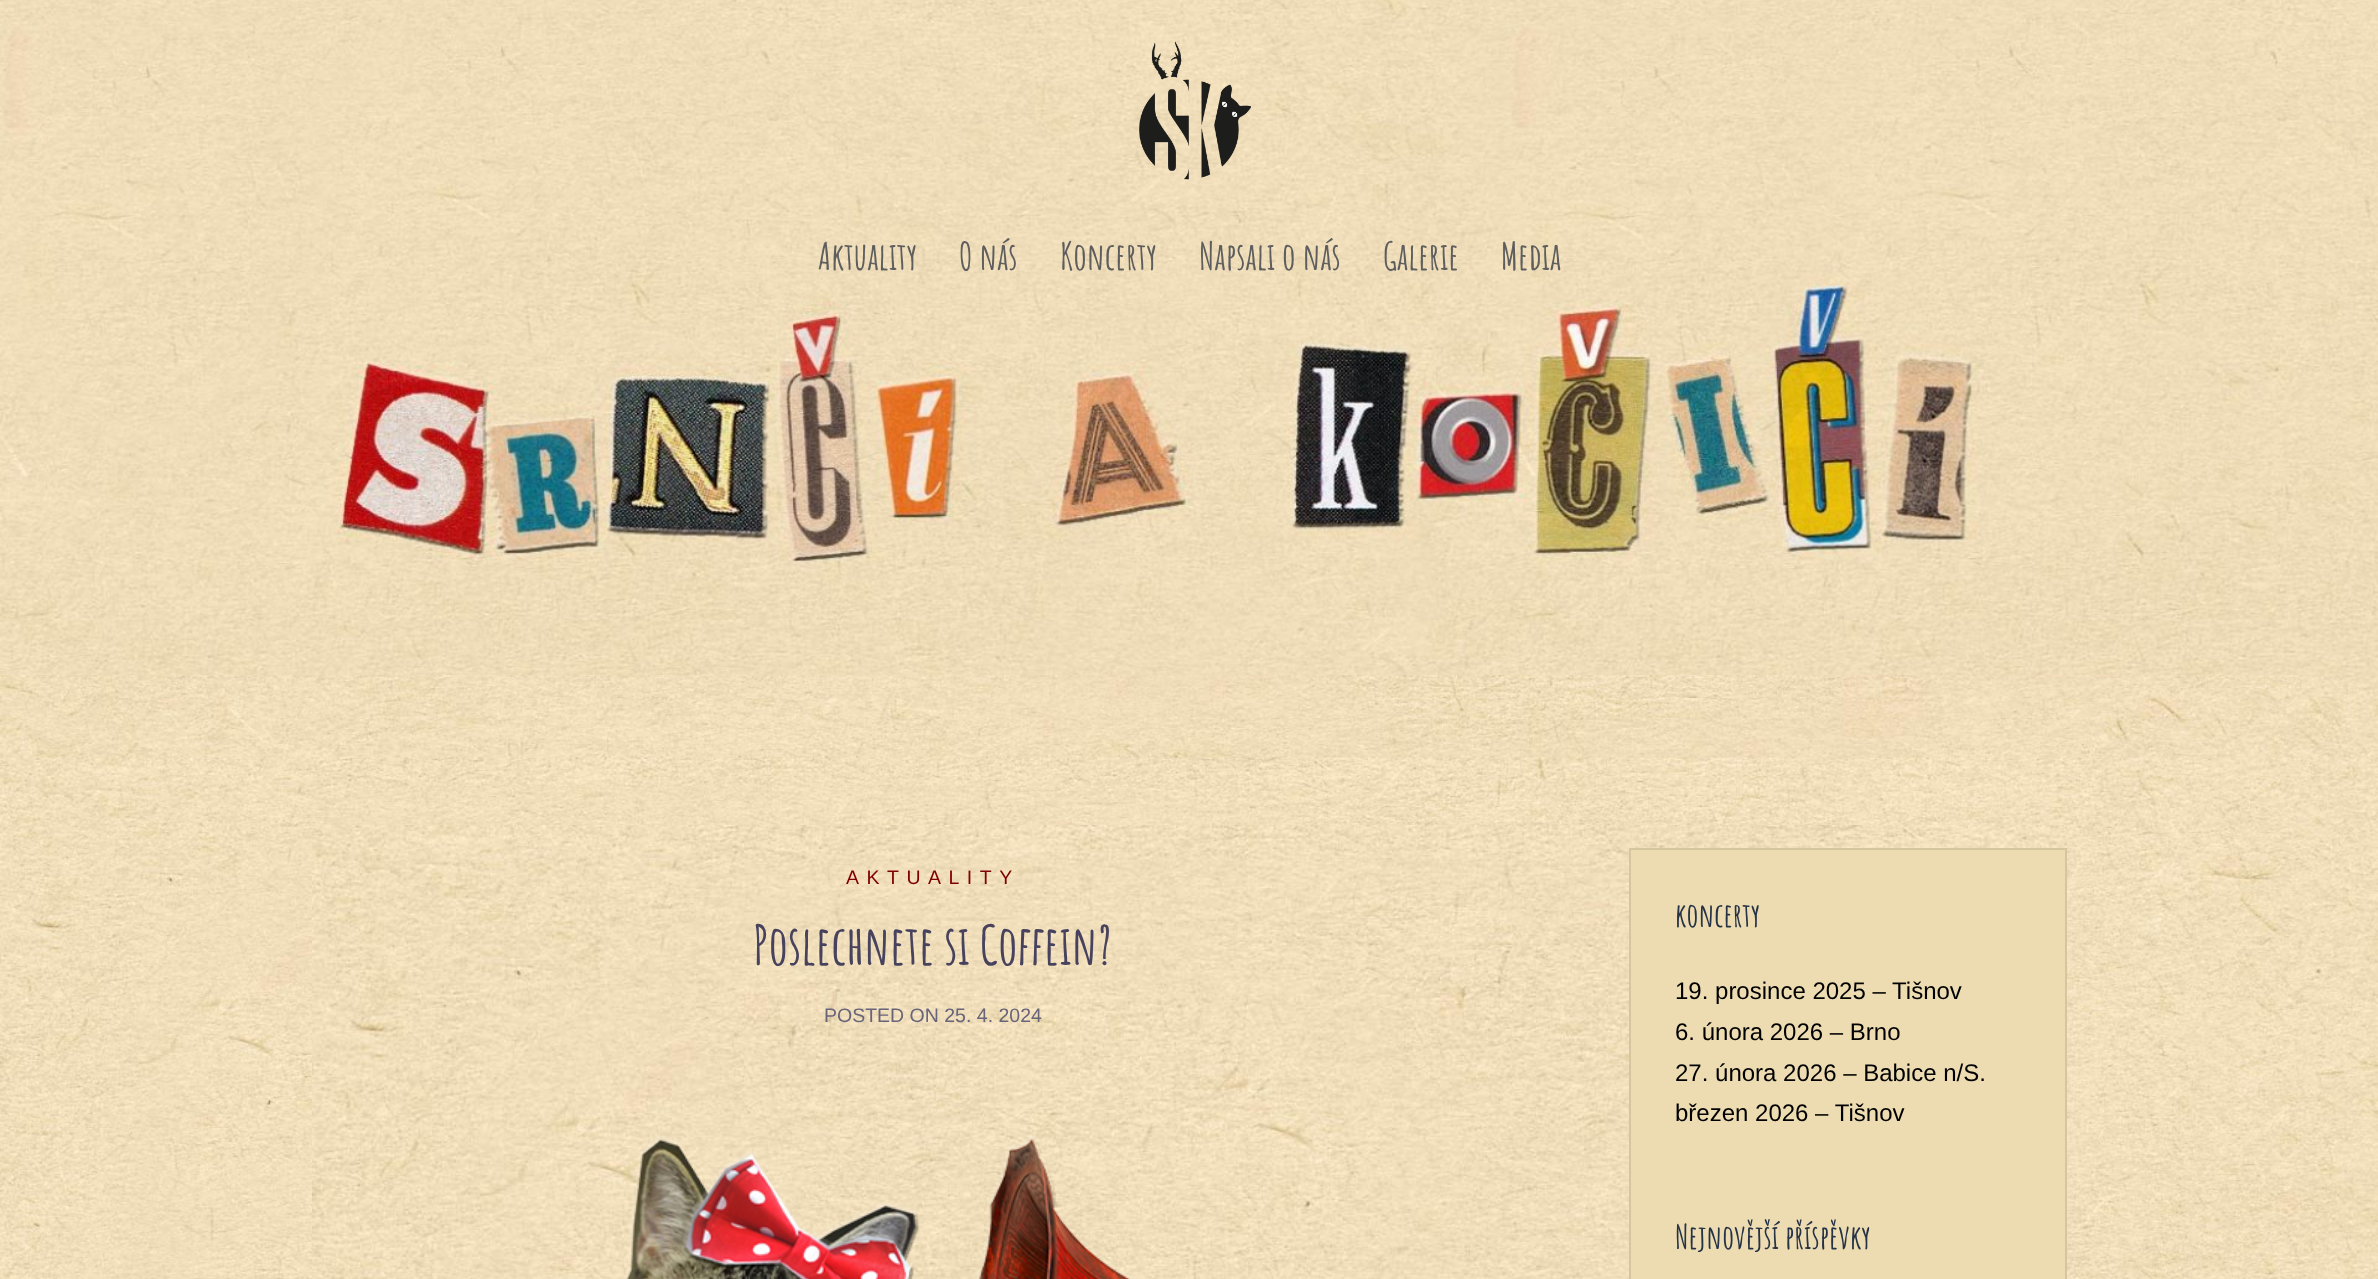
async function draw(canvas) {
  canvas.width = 2378;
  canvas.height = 1279;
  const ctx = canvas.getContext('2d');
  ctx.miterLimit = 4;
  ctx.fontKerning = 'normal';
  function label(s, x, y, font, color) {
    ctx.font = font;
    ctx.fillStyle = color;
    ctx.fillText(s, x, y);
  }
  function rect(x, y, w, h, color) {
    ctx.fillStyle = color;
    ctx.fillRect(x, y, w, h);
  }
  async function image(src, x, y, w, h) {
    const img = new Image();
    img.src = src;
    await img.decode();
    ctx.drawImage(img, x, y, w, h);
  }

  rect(0, 0, 2378, 1279, '#fff');
  await image('assets/img1.png', 0, 675, 2378, 604);
  await image('assets/img2.png', 0, 0, 2378, 675);
  await image('assets/img3.png', 1139, 41, 112, 139);
  label('Aktuality', 818, 270, 'bold 37.5px Amatic SC', '#5e5e5e');
  label('O nás', 959, 270, 'bold 37.5px Amatic SC', '#5e5e5e');
  label('Koncerty', 1060, 270, 'bold 37.5px Amatic SC', '#5e5e5e');
  label('Napsali o nás', 1199, 270, 'bold 37.5px Amatic SC', '#5e5e5e');
  label('Galerie', 1383, 270, 'bold 37.5px Amatic SC', '#5e5e5e');
  label('Media', 1501, 270, 'bold 37.5px Amatic SC', '#5e5e5e');
  await image('assets/img4.png', 312, 825, 1755, 454);
  ctx.letterSpacing = '7.5px';
  label('AKTUALITY', 846, 884, '19.5px Liberation Sans', '#7f0004');
  ctx.letterSpacing = '0px';
  label('Poslechnete si Coffein?', 753, 965, 'bold 54px Amatic SC', '#47425d');
  label('POSTED ON 25. 4. 2024', 824, 1022, '19.5px Liberation Sans', '#68647a');
  await image('assets/img5.png', 623, 1135, 513, 144);
  ctx.fillStyle = '#eddcb1';
  ctx.beginPath();
  ctx.rect(1630, 849, 436, 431);
  ctx.fill();
  ctx.strokeStyle = '#d5c69f';
  ctx.lineWidth = 2;
  ctx.stroke();
  label('koncerty', 1675, 927, 'bold 33px Amatic SC', '#263246');
  label('19. prosince 2025 – Tišnov', 1675, 999, '24px Liberation Sans', '#000');
  label('6. února 2026 – Brno', 1675, 1040, '24px Liberation Sans', '#000');
  label('27. února 2026 – Babice n/S.', 1675, 1081, '24px Liberation Sans', '#000');
  label('březen 2026 – Tišnov', 1675, 1121, '24px Liberation Sans', '#000');
  label('Nejnovější příspěvky', 1675, 1249, 'bold 33px Amatic SC', '#263246');
}

draw(document.querySelector('canvas'));
